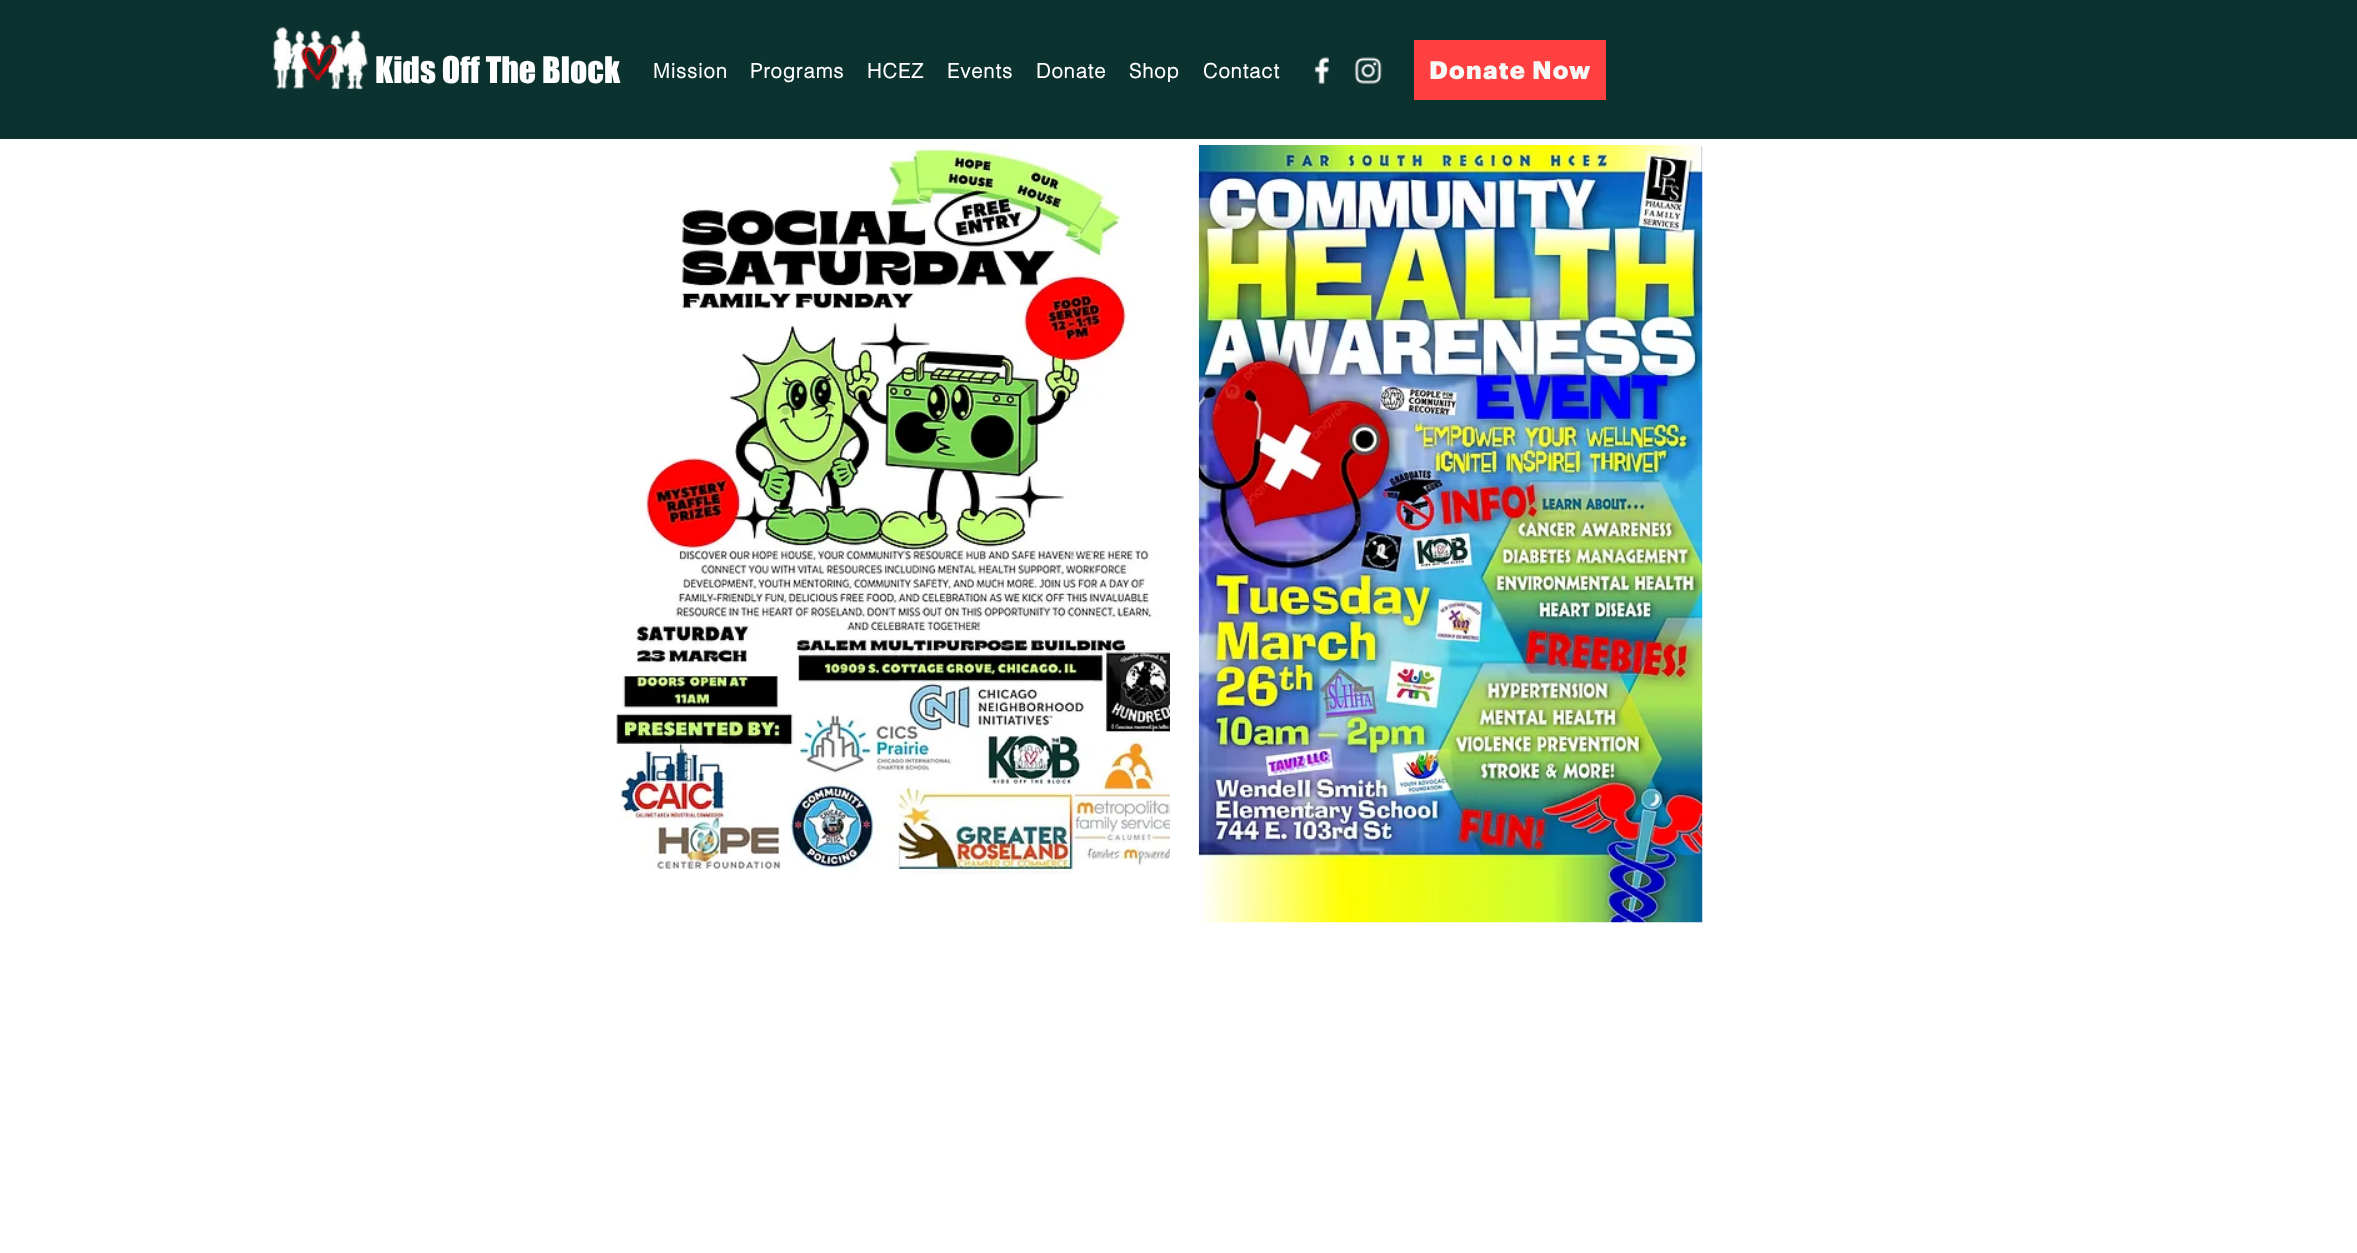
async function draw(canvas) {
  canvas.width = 2357;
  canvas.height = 1253;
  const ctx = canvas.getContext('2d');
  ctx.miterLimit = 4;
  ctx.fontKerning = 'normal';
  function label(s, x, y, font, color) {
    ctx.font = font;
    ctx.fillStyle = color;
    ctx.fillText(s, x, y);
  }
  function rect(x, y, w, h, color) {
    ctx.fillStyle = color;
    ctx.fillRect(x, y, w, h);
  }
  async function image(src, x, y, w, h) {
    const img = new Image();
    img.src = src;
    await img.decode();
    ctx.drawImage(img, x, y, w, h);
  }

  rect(0, 0, 2357, 1253, '#fff');
  rect(0, 0, 2357, 139, '#0b322e');
  await image('assets/img1.png', 273, 27, 95, 63);
  label('Kids Off The Block', 375, 83, '33.75px "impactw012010"', '#fff');
  ctx.letterSpacing = '1px';
  label('Mission', 653, 78, 'bold 20px helvetica', '#fff');
  label('Programs', 750, 78, 'bold 20px helvetica', '#fff');
  label('HCEZ', 867, 78, 'bold 20px helvetica', '#fff');
  label('Events', 947, 78, 'bold 20px helvetica', '#fff');
  label('Donate', 1036, 78, 'bold 20px helvetica', '#fff');
  label('Shop', 1129, 78, 'bold 20px helvetica', '#fff');
  label('Contact', 1203, 78, 'bold 20px helvetica', '#fff');
  await image('assets/img2.png', 1314, 57, 15, 27);
  await image('assets/img3.png', 1354, 57, 28, 27);
  rect(1414, 40, 192, 60, '#ff4040');
  ctx.letterSpacing = '1.25px';
  label('Donate Now', 1429, 79, '900 25px Graphik', '#f6f9f5');
  await image('assets/img4.png', 615, 147, 555, 728);
  await image('assets/img5.png', 1198, 145, 505, 778);
}

draw(document.querySelector('canvas'));
